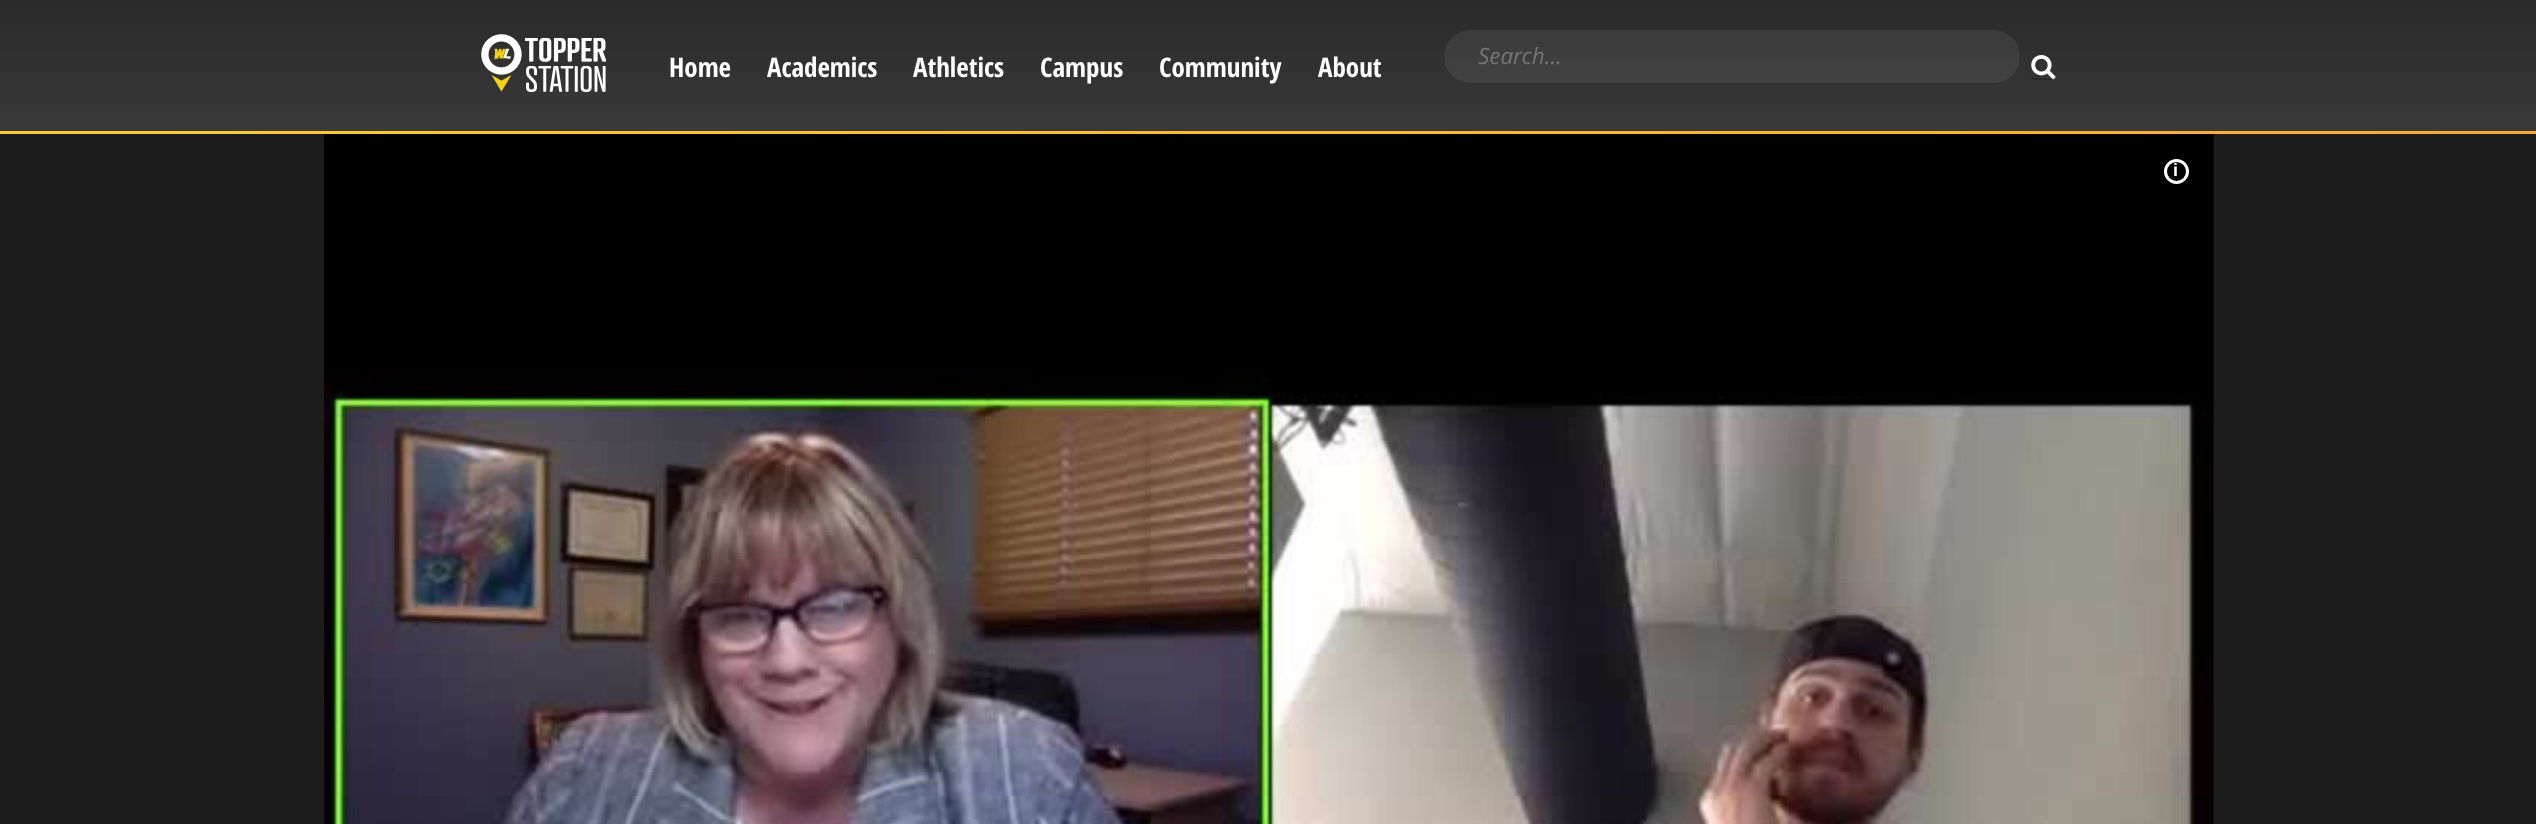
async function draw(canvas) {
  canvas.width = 2536;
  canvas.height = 824;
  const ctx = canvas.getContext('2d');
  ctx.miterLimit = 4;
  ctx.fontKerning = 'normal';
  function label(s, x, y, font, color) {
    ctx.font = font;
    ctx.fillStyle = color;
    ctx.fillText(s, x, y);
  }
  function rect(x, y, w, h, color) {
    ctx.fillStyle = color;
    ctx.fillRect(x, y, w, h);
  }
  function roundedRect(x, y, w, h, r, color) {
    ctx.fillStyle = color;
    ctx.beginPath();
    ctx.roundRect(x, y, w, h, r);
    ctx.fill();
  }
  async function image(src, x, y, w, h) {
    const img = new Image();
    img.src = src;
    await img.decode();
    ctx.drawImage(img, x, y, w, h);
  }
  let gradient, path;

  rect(0, 0, 2536, 824, '#1c1c1c');
  gradient = ctx.createLinearGradient(1268, 134, 1268, 0);
  gradient.addColorStop(0, '#3a3a3a');
  gradient.addColorStop(1, '#292929');
  ctx.fillStyle = gradient;
  ctx.fillRect(0, 0, 2536, 131);
  await image('assets/img1.png', 481, 34, 125, 58);
  label('Home', 669, 77, 'bold 27px Open Sans Condensed', '#fff');
  label('Academics', 767, 77, 'bold 27px Open Sans Condensed', '#fff');
  label('Athletics', 913, 77, 'bold 27px Open Sans Condensed', '#fff');
  label('Campus', 1040, 77, 'bold 27px Open Sans Condensed', '#fff');
  label('Community', 1159, 77, 'bold 27px Open Sans Condensed', '#fff');
  label('About', 1318, 77, 'bold 27px Open Sans Condensed', '#fff');
  roundedRect(1444, 30, 576, 53, 26.5, '#ffffff12');
  label('Search…', 1478, 64, 'italic 22.5px Open Sans', '#757575');
  await image('assets/img2.png', 2031, 55, 25, 25);
  ctx.fillStyle = '#00000033';
  path = new Path2D('M2031.5 58.5L2031 60.5ZM2031 73C2031 82 2036 80 2043.5 80C2048 80 2056 81.5 2056 74.5C2055.5 77 2054 79 2051 79L2034 78C2032 77 2031 75 2031 73Z');
  ctx.fill(path, 'evenodd');
  gradient = ctx.createLinearGradient(0, 133, 2536, 132);
  gradient.addColorStop(0, '#ffcd33');
  gradient.addColorStop(1, '#fa3');
  ctx.fillStyle = gradient;
  ctx.fillRect(0, 131, 2536, 3);
  rect(2213, 134, 1, 690, '#151b17');
  await image('assets/img3.png', 324, 134, 1890, 690);
  ctx.beginPath();
  ctx.arc(2176.5, 171.5, 11, 0, 2 * Math.PI);
  ctx.strokeStyle = '#fff';
  ctx.lineWidth = 3;
  ctx.stroke();
  label('i', 2173, 176, 'bold 18px Liberation Sans', '#fff');
}

draw(document.querySelector('canvas'));
